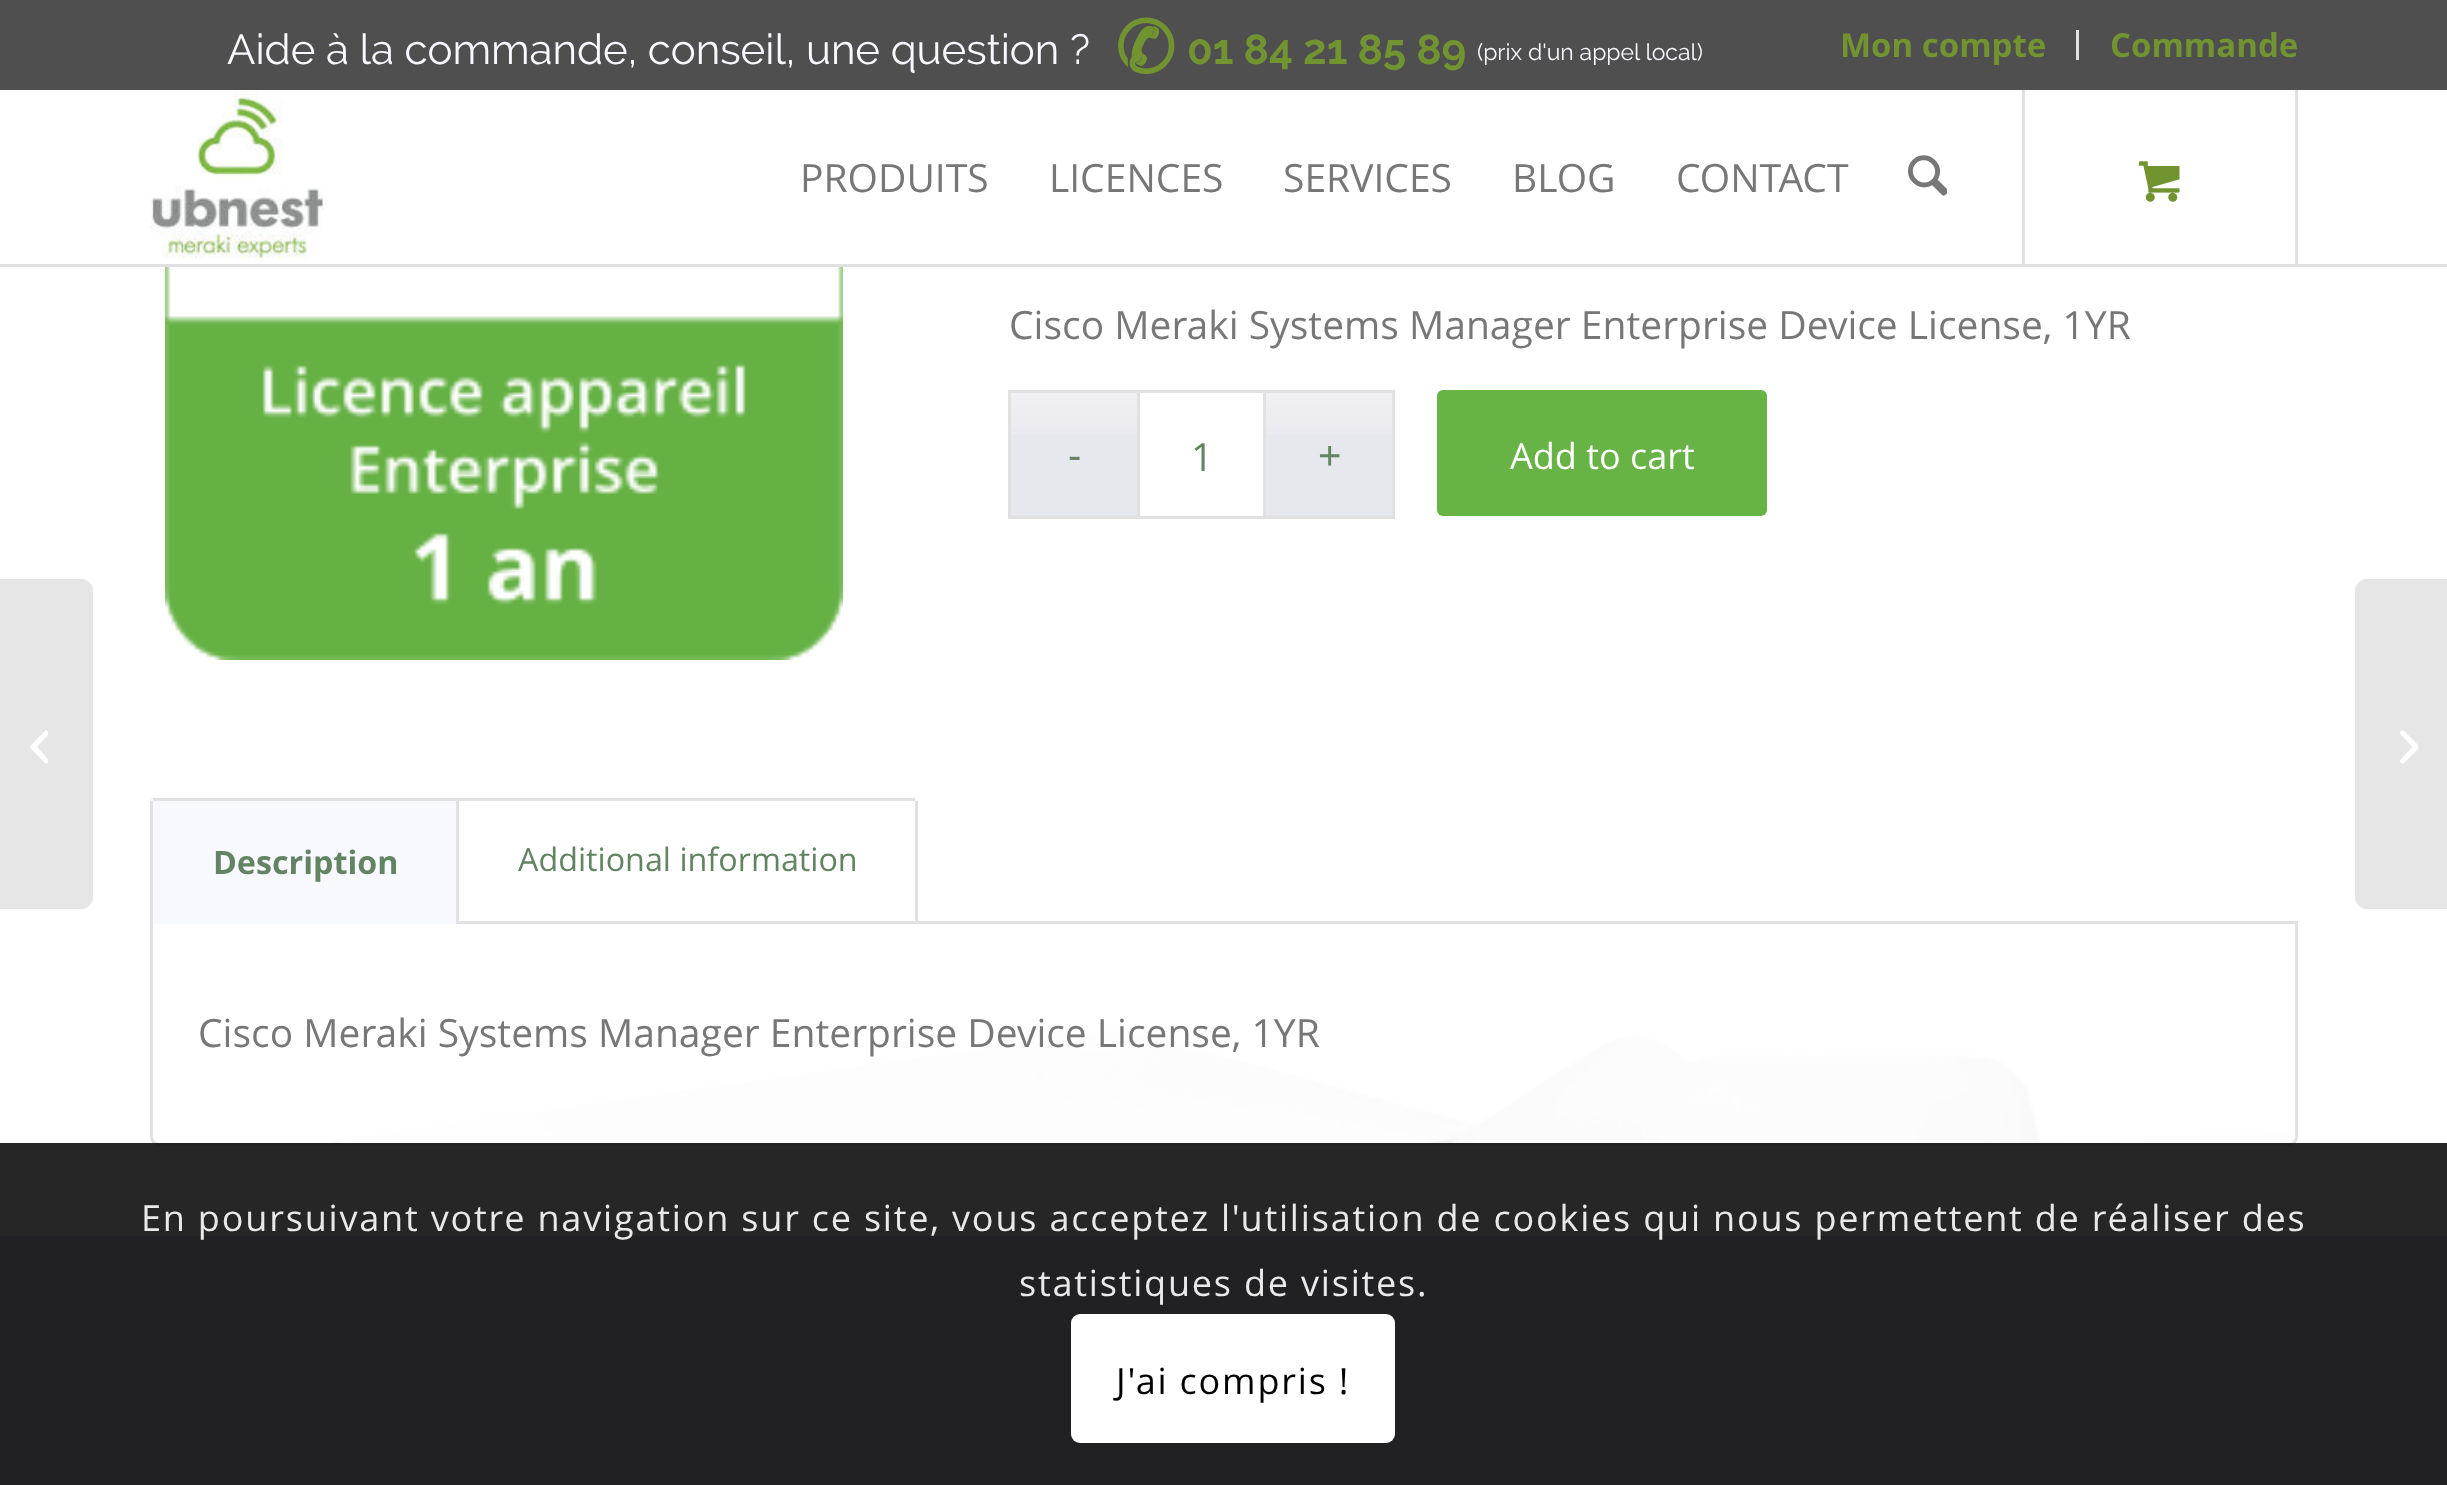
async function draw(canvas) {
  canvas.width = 2447;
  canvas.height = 1485;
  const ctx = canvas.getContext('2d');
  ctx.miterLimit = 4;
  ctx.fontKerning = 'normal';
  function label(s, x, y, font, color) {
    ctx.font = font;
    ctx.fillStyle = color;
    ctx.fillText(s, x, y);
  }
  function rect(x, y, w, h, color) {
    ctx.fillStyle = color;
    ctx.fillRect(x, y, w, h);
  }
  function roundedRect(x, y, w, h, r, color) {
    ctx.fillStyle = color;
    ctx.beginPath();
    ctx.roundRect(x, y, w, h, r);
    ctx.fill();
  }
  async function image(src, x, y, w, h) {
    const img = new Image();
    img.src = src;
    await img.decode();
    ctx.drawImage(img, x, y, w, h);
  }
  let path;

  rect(0, 0, 2447, 1485, '#fff');
  rect(0, 0, 2447, 90, '#504f50');
  label('Aide à la commande, conseil, une question ?', 227, 64, '42px Raleway', '#f8f8ff');
  label('✆', 1115, 73, 'bold 72px DejaVu Sans', '#719430');
  label('01 84 21 85 89', 1187, 64, 'bold 42px Raleway', '#719430');
  label('(prix d\'un appel local)', 1477, 60, '23px Raleway', '#f8f8ff');
  rect(2076, 30, 3, 30, '#e1e1e1');
  label('Mon compte', 1840, 57, 'bold 33px Open Sans', '#719430');
  label('Commande', 2110, 57, 'bold 33px Open Sans', '#719430');
  rect(0, 264, 2447, 3, '#e1e1e1');
  await image('assets/img1.png', 150, 90, 174, 169);
  label('PRODUITS', 800, 192, '39px Open Sans', '#777');
  label('LICENCES', 1049, 192, '39px Open Sans', '#777');
  label('SERVICES', 1283, 192, '39px Open Sans', '#777');
  label('BLOG', 1512, 192, '39px Open Sans', '#777');
  label('CONTACT', 1676, 192, '39px Open Sans', '#777');
  await image('assets/img2.png', 1908, 155, 39, 41);
  rect(2295, 90, 3, 174, '#e1e1e1');
  rect(2022, 90, 3, 174, '#e1e1e1');
  await image('assets/img3.png', 2139, 161, 41, 41);
  ctx.fillStyle = '#e6e6e6';
  ctx.beginPath();
  ctx.roundRect(0, 579, 93, 330, [0, 12, 12, 0]);
  ctx.fill();
  await image('assets/img4.png', 30, 730, 18, 34);
  await image('assets/img5.png', 165, 267, 678, 393);
  label('Cisco Meraki Systems Manager Enterprise Device License, 1YR', 1009, 339, '39px Open Sans', '#777');
  rect(1011, 393, 126, 123, '#e7e7ee');
  await image('assets/img6.png', 1011, 393, 126, 41);
  rect(1266, 393, 126, 123, '#e7e7ee');
  await image('assets/img6.png', 1266, 393, 126, 41);
  label('-', 1068, 469, '40px Liberation Sans', '#638463');
  rect(1008, 390, 129, 3, '#e1e1e1');
  rect(1008, 516, 129, 3, '#e1e1e1');
  rect(1008, 390, 3, 129, '#e1e1e1');
  ctx.strokeStyle = '#e1e1e1';
  ctx.lineWidth = 3;
  ctx.strokeRect(1138.5, 391.5, 126, 126);
  label('1', 1191, 471, '39px Open Sans', '#638463');
  label('+', 1318, 469, '40px Liberation Sans', '#638463');
  rect(1266, 390, 129, 3, '#e1e1e1');
  rect(1392, 390, 3, 129, '#e1e1e1');
  rect(1266, 516, 129, 3, '#e1e1e1');
  roundedRect(1437, 390, 330, 126, 6, '#67b346');
  label('Add to cart', 1510, 469, '36px Open Sans', '#fff');
  await image('assets/img7.png', 150, 924, 2148, 222);
  ctx.beginPath();
  ctx.roundRect(151.5, 922.5, 2145, 222, [0, 0, 7.5, 7.5]);
  ctx.stroke();
  rect(150, 798, 306, 126, '#f8f8ff');
  rect(456, 798, 459, 3, '#e1e1e1');
  rect(153, 798, 306, 3, '#e1e1e1');
  rect(456, 798, 3, 126, '#e1e1e1');
  rect(150, 801, 3, 123, '#e1e1e1');
  label('Description', 213, 874, 'bold 32.25px Open Sans', '#638463');
  rect(915, 801, 3, 123, '#e1e1e1');
  label('Additional information', 518, 871, '32.25px Open Sans', '#638463');
  label('Cisco Meraki Systems Manager Enterprise Device License, 1YR', 198, 1047, '39px Open Sans', '#777');
  rect(0, 1236, 2447, 249, '#dbdde6');
  ctx.fillStyle = '#e6e6e6';
  path = new Path2D('M2367 579H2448V909H2367C2360.5 909 2355 903.5 2355 897V591C2355 584.5 2360.5 579 2367 579Z');
  ctx.fill(path);
  await image('assets/img8.png', 2400, 730, 18, 34);
  rect(0, 1143, 2447, 342, '#000000d9');
  ctx.letterSpacing = '1.8px';
  label('En poursuivant votre navigation sur ce site, vous acceptez l\'utilisation de cookies qui nous permettent de réaliser des', 141, 1231, '36px Open Sans', '#e9e9e9');
  label('statistiques de visites.', 1019, 1296, '36px Open Sans', '#e9e9e9');
  roundedRect(1071, 1314, 324, 129, 9, '#fff');
  label('J\'ai compris !', 1116, 1394, '36px Open Sans', '#000');
}

draw(document.querySelector('canvas'));
